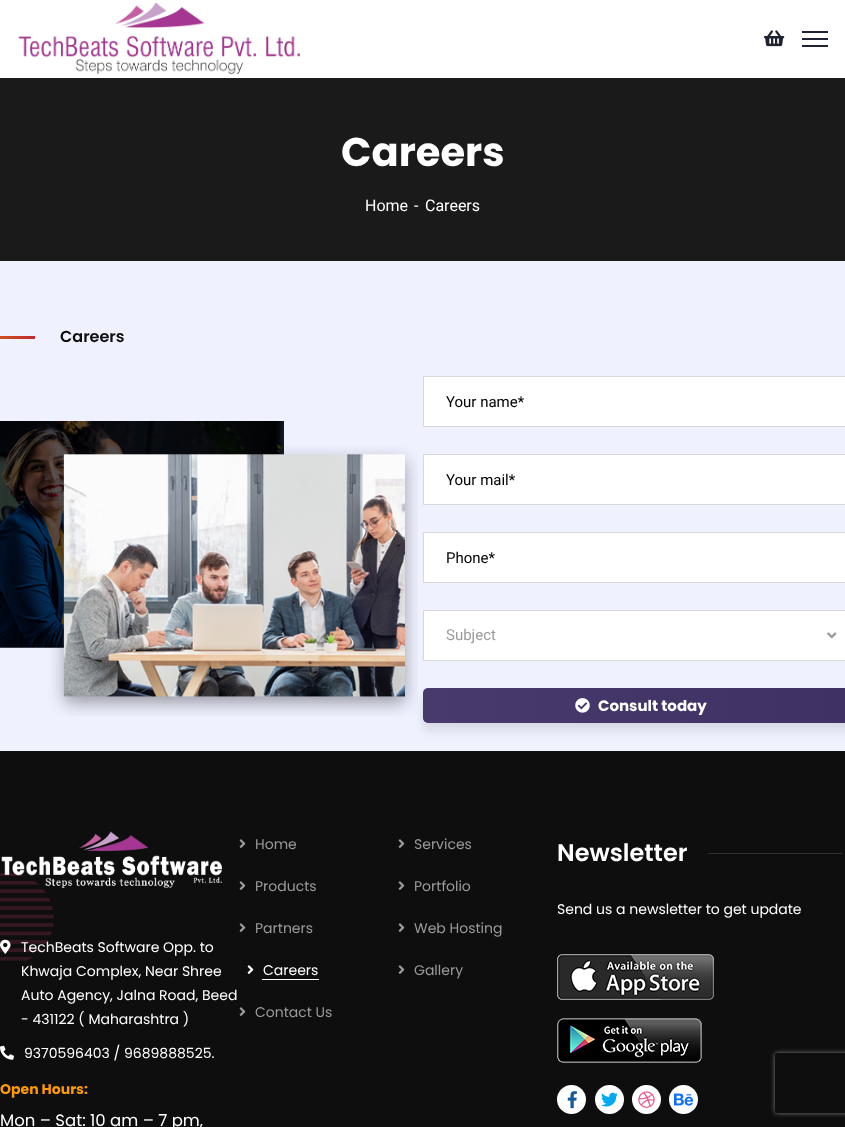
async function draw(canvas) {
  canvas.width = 845;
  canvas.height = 1127;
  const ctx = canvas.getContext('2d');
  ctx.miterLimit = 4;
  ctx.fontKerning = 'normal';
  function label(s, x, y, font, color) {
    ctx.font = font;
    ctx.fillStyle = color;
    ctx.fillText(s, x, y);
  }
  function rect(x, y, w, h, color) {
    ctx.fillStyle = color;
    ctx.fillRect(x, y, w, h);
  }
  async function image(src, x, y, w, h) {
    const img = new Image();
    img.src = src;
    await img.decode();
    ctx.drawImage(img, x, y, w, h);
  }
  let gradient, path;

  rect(0, 0, 845, 1127, '#fff');
  await image('assets/img1.png', 18, 2, 282, 73);
  await image('assets/img2.png', 764, 30, 21, 17);
  rect(802, 31, 26, 2, '#1f2233');
  rect(802, 38, 26, 2, '#1f2233');
  rect(802, 45, 26, 2, '#1f2233');
  rect(0, 78, 845, 183, '#1a1a1a');
  label('Careers', 341, 166, 'bold 40px Poppins', '#fff');
  label('Home', 365, 211, '16px Roboto', '#fff');
  label('-', 414, 211, '16px Roboto', '#fff');
  label('Careers', 425, 211, '16px Roboto', '#fff');
  rect(0, 261, 845, 490, '#eff1ff');
  gradient = ctx.createLinearGradient(-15, 337, 35, 337);
  gradient.addColorStop(0, '#d1651a');
  gradient.addColorStop(1, '#c1282a');
  ctx.fillStyle = gradient;
  ctx.fillRect(0, 336, 35, 3);
  label('Careers', 60, 342, '600 16px Poppins', '#0e0e0e');
  await image('assets/img3.png', 0, 421, 418, 295);
  ctx.fillStyle = '#fff';
  ctx.beginPath();
  ctx.rect(423.5, 376.5, 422, 50);
  ctx.fill();
  ctx.strokeStyle = '#d8d8d8';
  ctx.stroke();
  label('Your name*', 446, 407, '15px Roboto', '#000');
  ctx.fillStyle = '#fff';
  ctx.beginPath();
  ctx.rect(423.5, 454.5, 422, 50);
  ctx.fill();
  ctx.stroke();
  label('Your mail*', 446, 485, '15px Roboto', '#000');
  ctx.fillStyle = '#fff';
  ctx.beginPath();
  ctx.rect(423.5, 532.5, 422, 50);
  ctx.fill();
  ctx.stroke();
  label('Phone*', 446, 563, '15px Roboto', '#000');
  ctx.fillStyle = '#fff';
  ctx.beginPath();
  ctx.rect(423.5, 610.5, 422, 50);
  ctx.fill();
  ctx.stroke();
  label('Subject', 446, 640, '15px Roboto', '#9b9b9b');
  await image('assets/img4.png', 827, 632, 10, 7);
  ctx.fillStyle = '#0c0c0c1a';
  ctx.filter = 'blur(5px)';
  ctx.beginPath();
  ctx.roundRect(423, 696, 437, 35, 5);
  ctx.fill();
  ctx.filter = 'none';
  gradient = ctx.createLinearGradient(423, 706, 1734, 706);
  gradient.addColorStop(0, '#483a6d');
  gradient.addColorStop(0.5, '#3a2c5f');
  gradient.addColorStop(1, '#6a54a3');
  ctx.fillStyle = gradient;
  ctx.beginPath();
  ctx.roundRect(423, 688, 422, 35, [5, 0, 0, 5]);
  ctx.fill();
  await image('assets/img5.png', 575, 698, 15, 15);
  label('Consult today', 598, 711, 'bold 15px Poppins', '#fff');
  rect(0, 751, 845, 376, '#0e0e0e');
  await image('assets/img6.png', 239, 839, 7, 9);
  label('Home', 255, 849, '14px Poppins', '#9b9b9b');
  await image('assets/img6.png', 398, 839, 7, 9);
  label('Services', 414, 849, '14px Poppins', '#9b9b9b');
  await image('assets/img6.png', 239, 881, 7, 9);
  label('Products', 255, 891, '14px Poppins', '#9b9b9b');
  await image('assets/img6.png', 398, 881, 7, 9);
  label('Portfolio', 414, 891, '14px Poppins', '#9b9b9b');
  await image('assets/img6.png', 239, 923, 7, 9);
  label('Partners', 255, 933, '14px Poppins', '#9b9b9b');
  await image('assets/img6.png', 398, 923, 7, 9);
  label('Web Hosting', 414, 933, '14px Poppins', '#9b9b9b');
  await image('assets/img7.png', 247, 965, 7, 9);
  label('Careers', 263, 975, '14px Poppins', '#fff');
  rect(262, 979, 57, 1, '#fff');
  await image('assets/img6.png', 398, 965, 7, 9);
  label('Gallery', 414, 975, '14px Poppins', '#9b9b9b');
  await image('assets/img6.png', 239, 1007, 7, 9);
  label('Contact Us', 255, 1017, '14px Poppins', '#9b9b9b');
  label('Newsletter', 557, 861, '600 24px Poppins', '#fff');
  rect(708, 853, 134, 1, '#2f2f30');
  label('Send us a newsletter to get update', 557, 914, '14px Poppins', '#fff');
  await image('assets/img8.png', 557, 954, 157, 46);
  await image('assets/img9.png', 557, 1018, 145, 45);
  ctx.beginPath();
  ctx.arc(571.5, 1099.5, 14.5, 0, 2 * Math.PI);
  ctx.fill();
  await image('assets/img10.png', 567, 1091, 10, 18);
  ctx.beginPath();
  ctx.arc(609.5, 1099.5, 14.5, 0, 2 * Math.PI);
  ctx.fill();
  await image('assets/img11.png', 601, 1092, 17, 15);
  ctx.beginPath();
  ctx.arc(646.5, 1099.5, 14.5, 0, 2 * Math.PI);
  ctx.fill();
  await image('assets/img12.png', 638, 1091, 17, 17);
  ctx.beginPath();
  ctx.arc(683.5, 1099.5, 14.5, 0, 2 * Math.PI);
  ctx.fill();
  await image('assets/img13.png', 674, 1093, 20, 13);
  await image('assets/img17.png', 0, 872, 54, 89);
  await image('assets/img14.png', 1, 831, 221, 57);
  await image('assets/img15.png', 0, 939, 11, 15);
  label('TechBeats Software Opp. to', 21, 952, '14px Poppins', '#fff');
  label('Khwaja Complex, Near Shree', 21, 976, '14px Poppins', '#fff');
  label('Auto Agency, Jalna Road, Beed', 21, 1000, '14px Poppins', '#fff');
  label('- 431122 ( Maharashtra )', 21, 1024, '14px Poppins', '#fff');
  await image('assets/img16.png', 0, 1045, 14, 15);
  label('9370596403 / 9689888525.', 24, 1058, '14px Poppins', '#fff');
  label('Open Hours:', 0, 1094, 'bold 14px Poppins', '#fe9a00');
  label('Mon – Sat: 10 am – 7 pm,', 0, 1126, '16.5px Poppins', '#fff');
  ctx.save();
  path = new Path2D('M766 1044H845V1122H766ZM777 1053H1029C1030 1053 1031 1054 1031 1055V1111C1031 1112 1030 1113 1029 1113H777C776 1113 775 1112 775 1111V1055C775 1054 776 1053 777 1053Z');
  ctx.clip(path, 'evenodd');
  ctx.fillStyle = '#808080';
  ctx.filter = 'blur(2.5px)';
  ctx.beginPath();
  ctx.roundRect(775, 1053, 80, 60, 2);
  ctx.fill();
  ctx.filter = 'none';
  ctx.restore();
}

draw(document.querySelector('canvas'));
